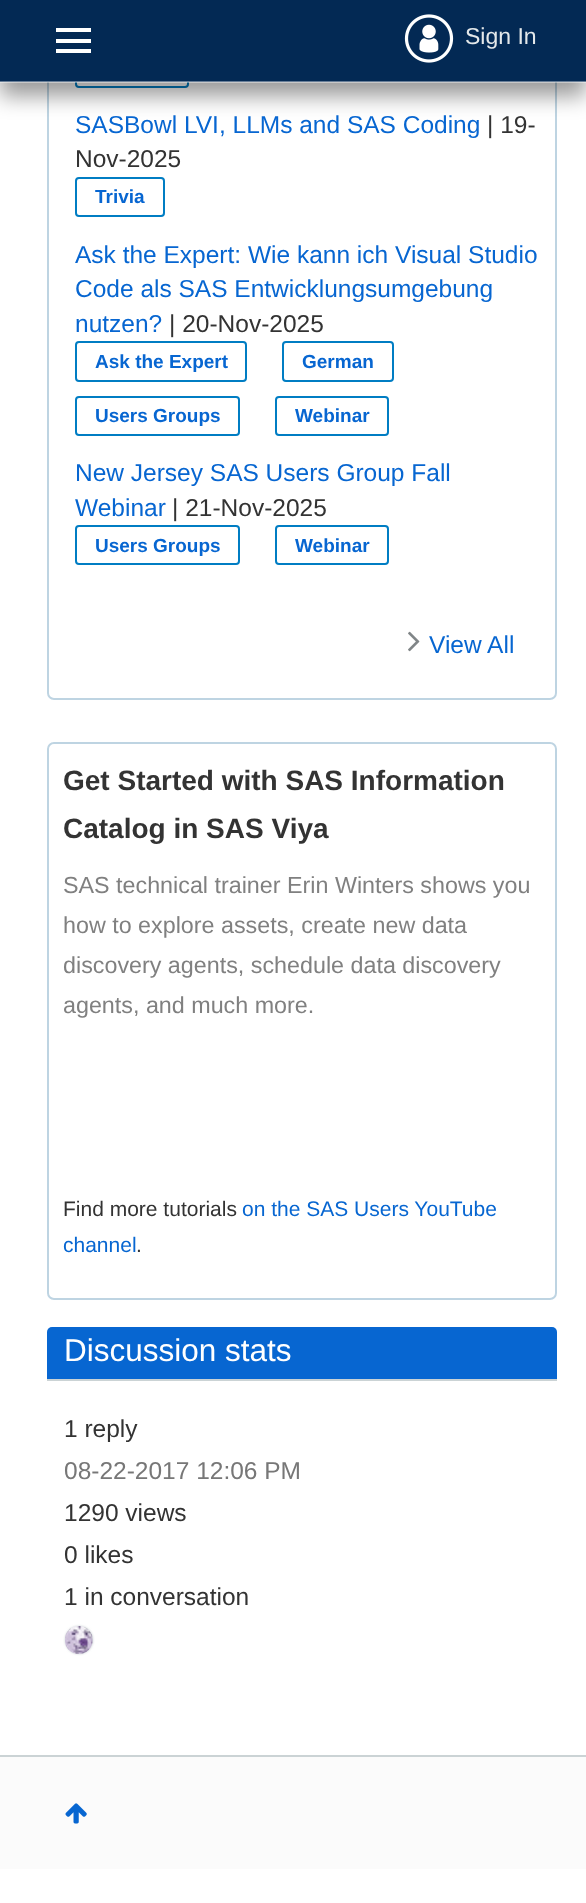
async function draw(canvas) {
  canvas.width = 586;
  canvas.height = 1903;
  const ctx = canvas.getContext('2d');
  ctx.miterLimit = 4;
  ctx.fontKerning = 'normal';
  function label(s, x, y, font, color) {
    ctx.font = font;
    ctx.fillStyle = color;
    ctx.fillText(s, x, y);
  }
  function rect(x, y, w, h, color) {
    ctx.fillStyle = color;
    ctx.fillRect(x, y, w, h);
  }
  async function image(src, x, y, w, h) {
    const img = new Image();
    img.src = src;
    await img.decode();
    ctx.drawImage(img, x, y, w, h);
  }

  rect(0, 0, 586, 1903, '#fff');
  ctx.beginPath();
  ctx.roundRect(48, -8, 508, 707, 6);
  ctx.strokeStyle = '#bed4e2';
  ctx.lineWidth = 2;
  ctx.stroke();
  ctx.beginPath();
  ctx.roundRect(76, 48, 112, 39, 3);
  ctx.strokeStyle = '#007dc3';
  ctx.stroke();
  ctx.fillStyle = '#00000066';
  ctx.filter = 'blur(10.5px)';
  ctx.beginPath();
  ctx.rect(0, 14, 586, 82);
  ctx.fill();
  ctx.filter = 'none';
  rect(0, 0, 586, 82, '#032954');
  rect(0, 81, 586, 2, '#ffffff66');
  rect(56, 28, 35, 4, '#fff');
  rect(56, 39, 35, 4, '#fff');
  rect(56, 49, 35, 4, '#fff');
  await image('assets/img1.png', 404, 14, 50, 49);
  label('Sign In', 465, 44, '23px Liberation Sans', '#e4e8ea');
  label('SASBowl LVI, LLMs and SAS Coding', 75, 133, '24.5px Liberation Sans', '#0766d1');
  label('| 19-', 487, 133, '24.5px Liberation Sans', '#333');
  label('Nov-2025', 75, 167, '24.5px Liberation Sans', '#333');
  ctx.beginPath();
  ctx.roundRect(76, 178, 88, 38, 3);
  ctx.stroke();
  label('Trivia', 95, 203, 'bold 19px Liberation Sans', '#0766d1');
  label('Ask the Expert: Wie kann ich Visual Studio', 75, 263, '24.5px Liberation Sans', '#0766d1');
  label('Code als SAS Entwicklungsumgebung', 75, 297, '24.5px Liberation Sans', '#0766d1');
  label('nutzen?', 75, 332, '24.5px Liberation Sans', '#0766d1');
  label('| 20-Nov-2025', 169, 332, '24.5px Liberation Sans', '#333');
  ctx.beginPath();
  ctx.roundRect(76, 342, 170, 39, 3);
  ctx.stroke();
  label('Ask the Expert', 95, 368, 'bold 19px Liberation Sans', '#0766d1');
  ctx.beginPath();
  ctx.roundRect(283, 342, 110, 39, 3);
  ctx.stroke();
  label('German', 302, 368, 'bold 19px Liberation Sans', '#0766d1');
  ctx.beginPath();
  ctx.roundRect(76, 397, 163, 38, 3);
  ctx.stroke();
  label('Users Groups', 95, 422, 'bold 19px Liberation Sans', '#0766d1');
  ctx.beginPath();
  ctx.roundRect(276, 397, 112, 38, 3);
  ctx.stroke();
  label('Webinar', 295, 422, 'bold 19px Liberation Sans', '#0766d1');
  label('New Jersey SAS Users Group Fall', 75, 481, '24.5px Liberation Sans', '#0766d1');
  label('Webinar', 75, 516, '24.5px Liberation Sans', '#0766d1');
  label('| 21-Nov-2025', 172, 516, '24.5px Liberation Sans', '#333');
  ctx.beginPath();
  ctx.roundRect(76, 526, 163, 38, 3);
  ctx.stroke();
  label('Users Groups', 95, 552, 'bold 19px Liberation Sans', '#0766d1');
  ctx.beginPath();
  ctx.roundRect(276, 526, 112, 38, 3);
  ctx.stroke();
  label('Webinar', 295, 552, 'bold 19px Liberation Sans', '#0766d1');
  await image('assets/img2.png', 408, 631, 12, 21);
  label('View All', 429, 653, '24.5px Liberation Sans', '#0766d1');
  ctx.beginPath();
  ctx.roundRect(48, 743, 508, 556, 6);
  ctx.strokeStyle = '#bed4e2';
  ctx.stroke();
  label('Get Started with SAS Information', 63, 790, 'bold 28px Liberation Sans', '#333');
  label('Catalog in SAS Viya', 63, 838, 'bold 28px Liberation Sans', '#333');
  label('SAS technical trainer Erin Winters shows you', 63, 893, '23.3px Liberation Sans', '#808080');
  label('how to explore assets, create new data', 63, 933, '23.3px Liberation Sans', '#808080');
  label('discovery agents, schedule data discovery', 63, 973, '23.3px Liberation Sans', '#808080');
  label('agents, and much more.', 63, 1013, '23.3px Liberation Sans', '#808080');
  label('Find more tutorials', 63, 1216, '21px Liberation Sans', '#333');
  label('on the SAS Users YouTube', 242, 1216, '21px Liberation Sans', '#0766d1');
  label('channel', 63, 1252, '21px Liberation Sans', '#0766d1');
  label('.', 136, 1252, '21px Liberation Sans', '#333');
  ctx.fillStyle = '#0766d1';
  ctx.beginPath();
  ctx.roundRect(47, 1327, 510, 54, [5, 5, 0, 0]);
  ctx.fill();
  rect(47, 1379, 510, 2, '#cbd3d5');
  label('Discussion stats', 64, 1361, '31.5px Liberation Sans', '#fff');
  label('1 reply', 64, 1437, '24.5px Liberation Sans', '#333');
  label('08-22-2017 12:06 PM', 64, 1479, '24.5px Liberation Sans', '#777');
  label('1290 views', 64, 1521, '24.5px Liberation Sans', '#333');
  label('0 likes', 64, 1563, '24.5px Liberation Sans', '#333');
  label('1 in conversation', 64, 1605, '24.5px Liberation Sans', '#333');
  ctx.fillStyle = '#cbd3d5';
  ctx.filter = 'blur(1px)';
  ctx.beginPath();
  ctx.roundRect(65, 1626, 28, 28, 14);
  ctx.fill();
  ctx.filter = 'none';
  await image('assets/img3.png', 65, 1626, 28, 28);
  rect(0, 1757, 586, 112, '#fbfbfb');
  rect(0, 1755, 586, 2, '#cbd3d5');
  await image('assets/img4.png', 65, 1803, 22, 21);
}

draw(document.querySelector('canvas'));
